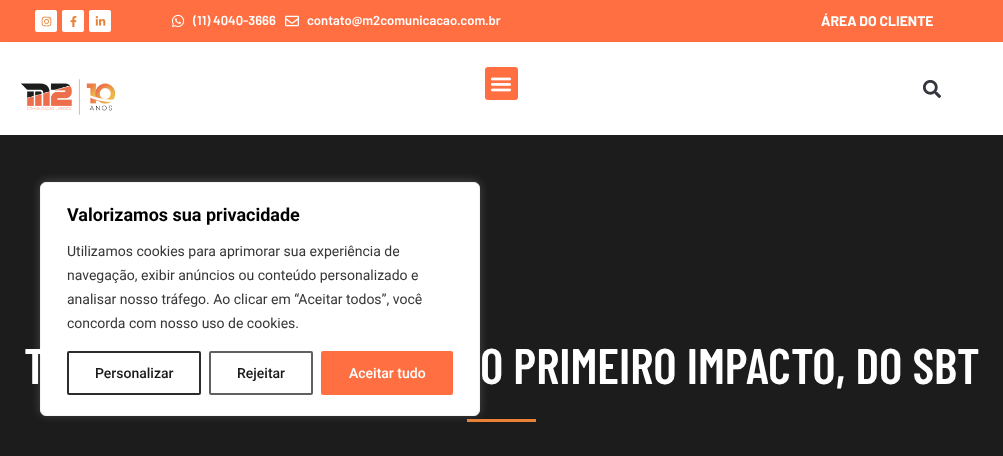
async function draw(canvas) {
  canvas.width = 1003;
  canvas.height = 456;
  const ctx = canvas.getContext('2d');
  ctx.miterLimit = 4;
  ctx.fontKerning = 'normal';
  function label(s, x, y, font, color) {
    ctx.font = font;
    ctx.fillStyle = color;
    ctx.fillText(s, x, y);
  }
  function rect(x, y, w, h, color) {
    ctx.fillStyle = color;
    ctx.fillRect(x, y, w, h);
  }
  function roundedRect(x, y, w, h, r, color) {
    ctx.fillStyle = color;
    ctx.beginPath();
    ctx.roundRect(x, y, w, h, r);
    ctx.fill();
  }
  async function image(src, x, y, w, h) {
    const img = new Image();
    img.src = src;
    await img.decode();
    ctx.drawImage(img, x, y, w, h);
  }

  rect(0, 0, 1003, 456, '#fff');
  rect(0, 0, 1003, 42, '#ff6f42');
  roundedRect(35, 10, 22, 22, 2, '#fff');
  await image('assets/img1.png', 41, 16, 11, 11);
  roundedRect(62, 10, 22, 22, 2, '#fff');
  await image('assets/img2.png', 70, 16, 7, 11);
  roundedRect(89, 10, 22, 22, 2, '#fff');
  await image('assets/img3.png', 95, 16, 11, 10);
  await image('assets/img4.png', 171, 14, 14, 13);
  label('(11) 4040-3666', 193, 25, '600 13px Barlow', '#fff');
  await image('assets/img5.png', 285, 15, 14, 12);
  label('contato@m2comunicacao.com.br', 307, 25, '600 13px Barlow', '#fff');
  label('ÁREA DO CLIENTE', 821, 26, 'bold 14px Barlow', '#fff');
  ctx.save();
  ctx.beginPath();
  ctx.rect(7, 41, 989, 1);
  ctx.clip();
  ctx.fillStyle = '#00000080';
  ctx.filter = 'blur(5px)';
  ctx.beginPath();
  ctx.rect(0, 50, 1003, 93);
  ctx.fill();
  ctx.filter = 'none';
  ctx.restore();
  await image('assets/img6.png', 20, 79, 96, 36);
  roundedRect(485, 67, 33, 33, 3, '#ff6f42');
  await image('assets/img7.png', 490, 77, 22, 15);
  await image('assets/img8.png', 923, 80, 18, 18);
  rect(0, 135, 1003, 321, '#1c1c1c');
  rect(467, 419, 69, 3, '#e98136');
  ctx.fillStyle = '#acabab4d';
  ctx.filter = 'blur(5px)';
  ctx.beginPath();
  ctx.roundRect(40, 181, 440, 234, 6);
  ctx.fill();
  ctx.filter = 'none';
  ctx.fillStyle = '#fff';
  ctx.beginPath();
  ctx.roundRect(40.5, 182.5, 439, 233, 5.5);
  ctx.fill();
  ctx.strokeStyle = '#f4f4f4';
  ctx.stroke();
  label('Valorizamos sua privacidade', 67, 221, 'bold 18px Roboto', '#000');
  label('Utilizamos cookies para aprimorar sua experiência de', 67, 256, '14px Roboto', '#363636');
  label('navegação, exibir anúncios ou conteúdo personalizado e', 67, 280, '14px Roboto', '#363636');
  label('analisar nosso tráfego. Ao clicar em “Aceitar todos”, você', 67, 304, '14px Roboto', '#363636');
  label('concorda com nosso uso de cookies.', 67, 328, '14px Roboto', '#363636');
  ctx.beginPath();
  ctx.roundRect(68, 352, 132, 42, 1);
  ctx.strokeStyle = '#2c2c2c';
  ctx.lineWidth = 2;
  ctx.stroke();
  label('Personalizar', 95, 378, '500 14px Roboto', '#191919');
  ctx.beginPath();
  ctx.roundRect(210, 352, 102, 42, 1);
  ctx.strokeStyle = '#606060';
  ctx.stroke();
  label('Rejeitar', 237, 378, '500 14px Roboto', '#191919');
  ctx.fillStyle = '#ff6f42';
  ctx.beginPath();
  ctx.roundRect(322, 352, 130, 42, 1);
  ctx.fill();
  ctx.strokeStyle = '#ff6f42';
  ctx.stroke();
  label('Aceitar tudo', 349, 378, '500 14px Roboto', '#fff');
  label('T', 24, 384, '600 50px Barlow Condensed', '#fff');
  label('O PRIMEIRO IMPACTO, DO SBT', 480, 384, '600 50px Barlow Condensed', '#fff');
}

draw(document.querySelector('canvas'));
